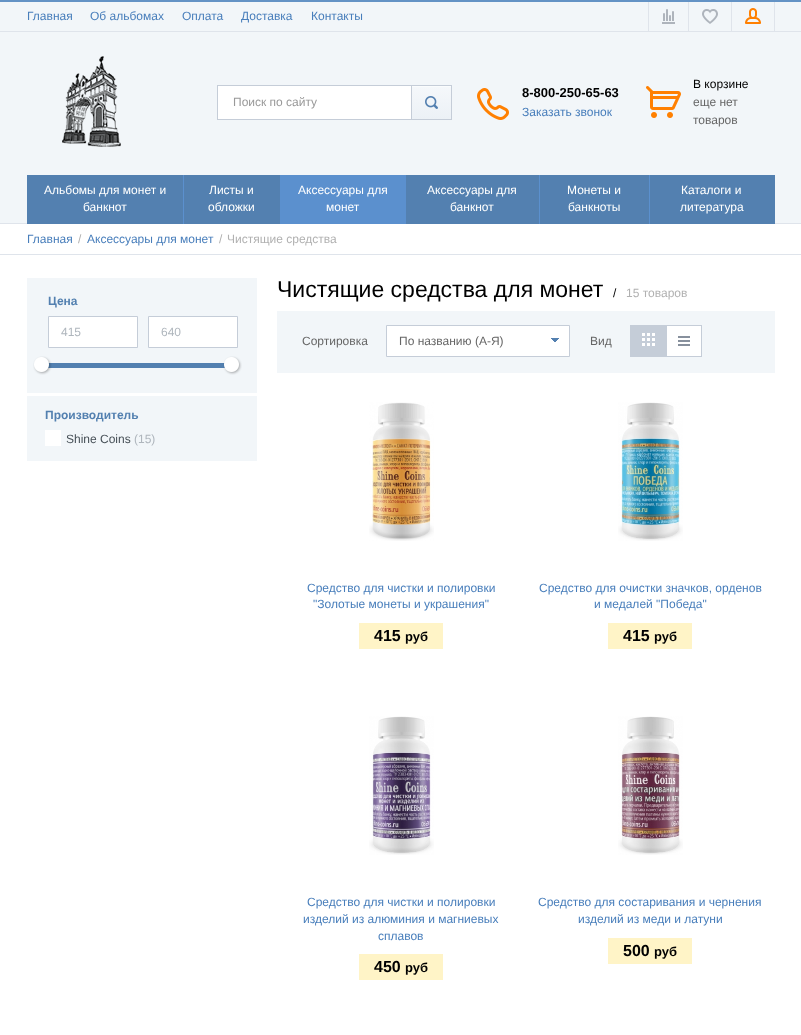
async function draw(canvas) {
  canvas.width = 801;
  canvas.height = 1035;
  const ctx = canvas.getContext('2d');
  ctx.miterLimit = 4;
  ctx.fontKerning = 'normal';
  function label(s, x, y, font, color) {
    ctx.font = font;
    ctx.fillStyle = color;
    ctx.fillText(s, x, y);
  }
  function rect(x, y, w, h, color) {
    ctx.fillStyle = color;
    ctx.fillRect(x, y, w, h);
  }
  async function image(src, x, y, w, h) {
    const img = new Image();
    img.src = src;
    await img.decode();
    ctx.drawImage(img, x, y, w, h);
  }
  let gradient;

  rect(0, 0, 801, 1035, '#fff');
  rect(0, 2, 801, 221, '#f2f6f9');
  rect(0, 0, 801, 2, '#6493c5');
  rect(0, 223, 801, 1, '#dfe4eb');
  rect(0, 31, 801, 1, '#dfe4eb');
  label('Главная', 27, 20, '12px Liberation Sans', '#487ebb');
  label('Об альбомах', 90, 20, '12px Liberation Sans', '#487ebb');
  label('Оплата', 182, 20, '12px Liberation Sans', '#487ebb');
  label('Доставка', 241, 20, '12px Liberation Sans', '#487ebb');
  label('Контакты', 311, 20, '12px Liberation Sans', '#487ebb');
  rect(648, 2, 1, 30, '#dfe4eb');
  rect(688, 2, 1, 29, '#dfe4eb');
  await image('assets/img1.png', 662, 9, 13, 15);
  rect(731, 2, 1, 29, '#dfe4eb');
  await image('assets/img2.png', 702, 9, 16, 15);
  rect(774, 2, 1, 29, '#dfe4eb');
  await image('assets/img3.png', 745, 8, 16, 16);
  await image('assets/img4.png', 62, 56, 59, 91);
  rect(218, 86, 193, 33, '#fff');
  ctx.strokeStyle = '#c5cdd8';
  ctx.strokeRect(217.5, 85.5, 234, 34);
  label('Поиск по сайту', 233, 106, '12px Liberation Sans', '#999');
  gradient = ctx.createLinearGradient(432, 86, 432, 119);
  gradient.addColorStop(0, '#f5f8fb');
  gradient.addColorStop(1, '#ecf1f6');
  ctx.fillStyle = gradient;
  ctx.fillRect(412, 87, 39, 32);
  rect(412, 86, 39, 1, '#fafcfd');
  ctx.strokeRect(411.5, 85.5, 40, 34);
  await image('assets/img5.png', 425, 96, 13, 13);
  await image('assets/img6.png', 477, 88, 32, 32);
  label('8-800-250-65-63', 522, 97, 'bold 13px Liberation Sans', '#000');
  label('Заказать звонок', 522, 116, '12px Liberation Sans', '#487ebb');
  await image('assets/img7.png', 646, 86, 35, 32);
  label('В корзине', 693, 88, '12px Liberation Sans', '#000');
  label('еще нет', 693, 106, '12px Liberation Sans', '#666');
  label('товаров', 693, 124, '12px Liberation Sans', '#666');
  rect(27, 175, 748, 49, '#5380b0');
  label('Альбомы для монет и', 44, 194, '12px Liberation Sans', '#fff');
  label('банкнот', 83, 211, '12px Liberation Sans', '#fff');
  rect(183, 175, 1, 49, '#5b90ce');
  label('Листы и', 209, 194, '12px Liberation Sans', '#fff');
  label('обложки', 208, 211, '12px Liberation Sans', '#fff');
  rect(280, 175, 126, 49, '#5b90ce');
  label('Аксессуары для', 298, 194, '12px Liberation Sans', '#fff');
  label('монет', 326, 211, '12px Liberation Sans', '#fff');
  label('Аксессуары для', 427, 194, '12px Liberation Sans', '#fff');
  label('банкнот', 450, 211, '12px Liberation Sans', '#fff');
  rect(539, 175, 1, 49, '#5b90ce');
  label('Монеты и', 567, 194, '12px Liberation Sans', '#fff');
  label('банкноты', 568, 211, '12px Liberation Sans', '#fff');
  rect(649, 175, 1, 49, '#5b90ce');
  label('Каталоги и', 681, 194, '12px Liberation Sans', '#fff');
  label('литература', 680, 211, '12px Liberation Sans', '#fff');
  rect(0, 254, 801, 1, '#dfe4eb');
  label('Главная', 27, 243, '12px Liberation Sans', '#487ebb');
  label('/', 78, 243, '12px Liberation Sans', '#b1b1b1');
  label('Аксессуары для монет', 87, 243, '12px Liberation Sans', '#487ebb');
  label('/', 219, 243, '12px Liberation Sans', '#b1b1b1');
  label('Чистящие средства', 227, 243, '12px Liberation Sans', '#b1b1b1');
  rect(27, 278, 230, 183, '#f2f6f9');
  label('Цена', 48, 305, 'bold 12px Liberation Sans', '#5380b0');
  ctx.fillStyle = '#fff';
  ctx.beginPath();
  ctx.rect(48.5, 316.5, 89, 31);
  ctx.fill();
  ctx.stroke();
  label('415', 61, 336, '12px Liberation Sans', '#afb6bd');
  ctx.fillStyle = '#fff';
  ctx.beginPath();
  ctx.rect(148.5, 316.5, 89, 31);
  ctx.fill();
  ctx.stroke();
  label('640', 161, 336, '12px Liberation Sans', '#afb6bd');
  rect(48, 363, 177, 5, '#5380b0');
  await image('assets/img8.png', 33, 356, 19, 19);
  await image('assets/img9.png', 223, 356, 19, 19);
  rect(27, 393, 230, 3, '#fff');
  label('Производитель', 45, 419, 'bold 12px Liberation Sans', '#5380b0');
  rect(45, 430, 16, 16, '#fff');
  label('Shine Coins', 66, 443, '12px Liberation Sans', '#475057');
  label('(15)', 134, 443, '12px Liberation Sans', '#afb6bd');
  label('Чистящие средства для монет', 277, 297, '23px Liberation Sans', '#000');
  label('/', 613, 297, '12px Liberation Sans', '#000');
  label('15 товаров', 626, 297, '12px Liberation Sans', '#b1b1b1');
  rect(277, 311, 498, 62, '#f2f6f9');
  label('Сортировка', 302, 345, '12px Liberation Sans', '#666');
  ctx.fillStyle = '#fff';
  ctx.beginPath();
  ctx.rect(386.5, 325.5, 183, 31);
  ctx.fill();
  ctx.stroke();
  label('По названию (А-Я)', 399, 345, '12px Liberation Sans', '#666');
  await image('assets/img10.png', 551, 338, 8, 4);
  label('Вид', 590, 345, '12px Liberation Sans', '#666');
  rect(667, 326, 34, 30, '#fff');
  ctx.strokeRect(630.5, 325.5, 71, 31);
  rect(631, 326, 36, 30, '#c5cdd8');
  await image('assets/img11.png', 642, 333, 13, 13);
  await image('assets/img12.png', 678, 336, 12, 10);
  await image('assets/img13.png', 369, 402, 65, 139);
  label('Средство для чистки и полировки', 307, 592, '12px Liberation Sans', '#487ebb');
  label('"Золотые монеты и украшения"', 313, 608, '12px Liberation Sans', '#487ebb');
  rect(359, 623, 84, 26, '#fff4c7');
  label('415', 374, 641, 'bold 16px Liberation Sans', '#000');
  label('руб', 405, 641, 'bold 13px Liberation Sans', '#000');
  await image('assets/img14.png', 618, 402, 65, 139);
  label('Средство для очистки значков, орденов', 539, 592, '12px Liberation Sans', '#487ebb');
  label('и медалей "Победа"', 594, 608, '12px Liberation Sans', '#487ebb');
  rect(608, 623, 84, 26, '#fff4c7');
  label('415', 623, 641, 'bold 16px Liberation Sans', '#000');
  label('руб', 654, 641, 'bold 13px Liberation Sans', '#000');
  await image('assets/img15.png', 369, 716, 65, 139);
  label('Средство для чистки и полировки', 307, 906, '12px Liberation Sans', '#487ebb');
  label('изделий из алюминия и магниевых', 303, 923, '12px Liberation Sans', '#487ebb');
  label('сплавов', 378, 940, '12px Liberation Sans', '#487ebb');
  rect(359, 954, 84, 26, '#fff4c7');
  label('450', 374, 972, 'bold 16px Liberation Sans', '#000');
  label('руб', 405, 972, 'bold 13px Liberation Sans', '#000');
  await image('assets/img16.png', 618, 716, 65, 139);
  label('Средство для состаривания и чернения', 538, 906, '12px Liberation Sans', '#487ebb');
  label('изделий из меди и латуни', 578, 923, '12px Liberation Sans', '#487ebb');
  rect(608, 938, 84, 26, '#fff4c7');
  label('500', 623, 956, 'bold 16px Liberation Sans', '#000');
  label('руб', 654, 956, 'bold 13px Liberation Sans', '#000');
}

draw(document.querySelector('canvas'));
